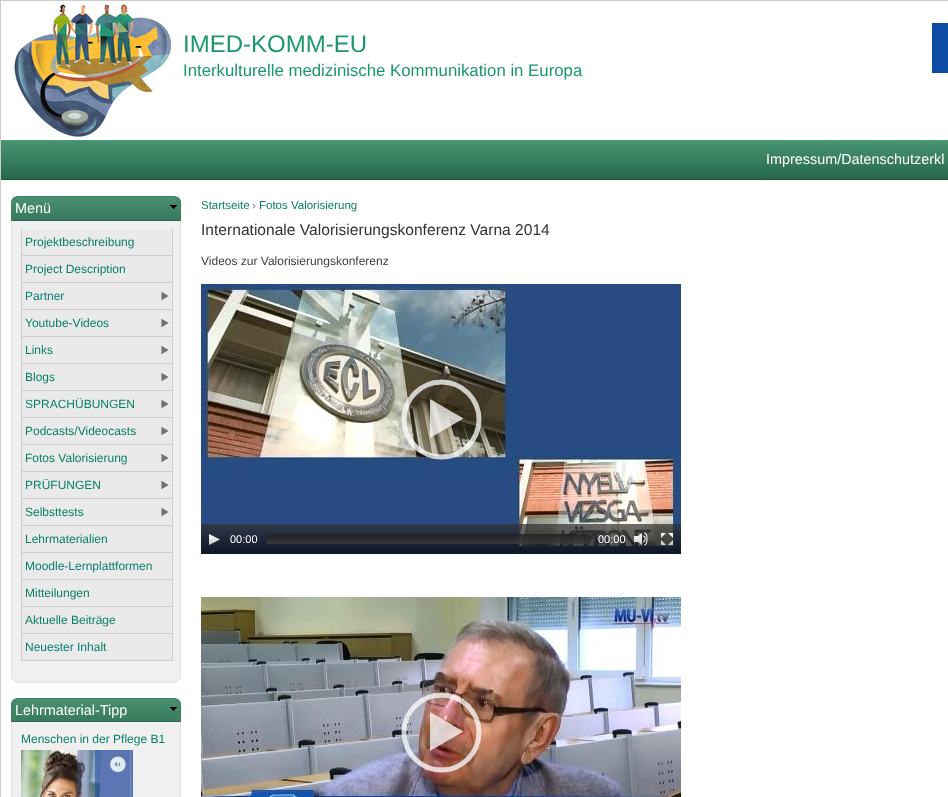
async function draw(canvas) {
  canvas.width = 948;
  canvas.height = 797;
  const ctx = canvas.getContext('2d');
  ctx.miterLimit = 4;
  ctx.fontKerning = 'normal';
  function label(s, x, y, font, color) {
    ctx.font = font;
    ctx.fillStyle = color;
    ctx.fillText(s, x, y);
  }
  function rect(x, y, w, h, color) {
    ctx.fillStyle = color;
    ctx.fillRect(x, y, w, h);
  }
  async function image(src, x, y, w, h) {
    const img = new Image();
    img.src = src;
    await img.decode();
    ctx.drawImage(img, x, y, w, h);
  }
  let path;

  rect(0, 0, 948, 797, '#fff');
  ctx.strokeStyle = '#ccc';
  ctx.strokeRect(0.5, 0.5, 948, 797);
  await image('assets/img1.png', 14, 4, 158, 133);
  label('IMED-KOMM-EU', 183, 52, '24px Liberation Sans', '#1c976c');
  label('Interkulturelle medizinische Kommunikation in Europa', 183, 76, '16.8px Liberation Sans', '#1c976c');
  rect(932, 23, 16, 50, '#0c4ca3');
  await image('assets/img2.png', 1, 141, 947, 39);
  rect(1, 140, 947, 1, '#50997f');
  label('Impressum/Datenschutzerkl', 766, 164, '14.4px Liberation Sans', '#fff');
  ctx.fillStyle = '#f0f0f0';
  ctx.beginPath();
  ctx.roundRect(11.5, 196.5, 169, 486, 6.5);
  ctx.fill();
  ctx.strokeStyle = '#e0e0e0';
  ctx.stroke();
  await image('assets/img3.png', 11, 197, 170, 24);
  ctx.fillStyle = '#3d7f69';
  path = new Path2D('M18 196C16 196 14 197 13 198L14 199L17 197H175L178 199L179 198C178 197 176 196 174 196Z');
  ctx.fill(path);
  path = new Path2D('M181 221V203C181 201 180 199 179 198L178 199C179 200 180 201.5 180 203V220Z');
  ctx.fill(path);
  ctx.fillStyle = '#306654';
  path = new Path2D('M181 221L180 220H12L11 221Z');
  ctx.fill(path);
  ctx.fillStyle = '#3d7f69';
  path = new Path2D('M11 221L12 220V203C12 201.5 13 200 14 199L13 198C12 199 11 201 11 203Z');
  ctx.fill(path);
  await image('assets/img4.png', 170, 205, 7, 4);
  label('Menü', 15, 213, '14.4px Liberation Sans', '#fff');
  rect(22, 229, 150, 26, '#eaeaea');
  rect(172, 229, 1, 432, '#ccc');
  rect(21, 255, 152, 1, '#ccc');
  rect(21, 229, 1, 27, '#ccc');
  label('Projektbeschreibung', 25, 246, '12px Liberation Sans', '#098066');
  rect(22, 256, 150, 26, '#eaeaea');
  rect(21, 282, 152, 1, '#ccc');
  rect(21, 256, 1, 27, '#ccc');
  label('Project Description', 25, 273, '12px Liberation Sans', '#098066');
  rect(22, 283, 150, 26, '#eaeaea');
  await image('assets/img5.png', 161, 291, 8, 10);
  rect(21, 309, 152, 1, '#ccc');
  rect(21, 283, 1, 27, '#ccc');
  label('Partner', 25, 300, '12px Liberation Sans', '#098066');
  rect(22, 310, 150, 26, '#eaeaea');
  await image('assets/img5.png', 161, 318, 8, 10);
  rect(21, 336, 152, 1, '#ccc');
  rect(21, 310, 1, 27, '#ccc');
  label('Youtube-Videos', 25, 327, '12px Liberation Sans', '#098066');
  rect(22, 337, 150, 26, '#eaeaea');
  await image('assets/img5.png', 161, 345, 8, 10);
  rect(21, 363, 152, 1, '#ccc');
  rect(21, 337, 1, 27, '#ccc');
  label('Links', 25, 354, '12px Liberation Sans', '#098066');
  rect(22, 364, 150, 26, '#eaeaea');
  await image('assets/img5.png', 161, 372, 8, 10);
  rect(21, 390, 152, 1, '#ccc');
  rect(21, 364, 1, 27, '#ccc');
  label('Blogs', 25, 381, '12px Liberation Sans', '#098066');
  rect(22, 391, 150, 26, '#eaeaea');
  await image('assets/img5.png', 161, 399, 8, 10);
  rect(21, 417, 152, 1, '#ccc');
  rect(21, 391, 1, 27, '#ccc');
  label('SPRACHÜBUNGEN', 25, 408, '12px Liberation Sans', '#098066');
  rect(22, 418, 150, 26, '#eaeaea');
  await image('assets/img5.png', 161, 426, 8, 10);
  rect(21, 444, 152, 1, '#ccc');
  rect(21, 418, 1, 27, '#ccc');
  label('Podcasts/Videocasts', 25, 435, '12px Liberation Sans', '#098066');
  rect(22, 445, 150, 26, '#eaeaea');
  await image('assets/img5.png', 161, 453, 8, 10);
  rect(21, 471, 152, 1, '#ccc');
  rect(21, 445, 1, 27, '#ccc');
  label('Fotos Valorisierung', 25, 462, '12px Liberation Sans', '#098066');
  rect(22, 472, 150, 26, '#eaeaea');
  await image('assets/img5.png', 161, 480, 8, 10);
  rect(21, 498, 152, 1, '#ccc');
  rect(21, 472, 1, 27, '#ccc');
  label('PRÜFUNGEN', 25, 489, '12px Liberation Sans', '#098066');
  rect(22, 499, 150, 26, '#eaeaea');
  await image('assets/img5.png', 161, 507, 8, 10);
  rect(21, 525, 152, 1, '#ccc');
  rect(21, 499, 1, 27, '#ccc');
  label('Selbsttests', 25, 516, '12px Liberation Sans', '#098066');
  rect(22, 526, 150, 26, '#eaeaea');
  rect(21, 552, 152, 1, '#ccc');
  rect(21, 526, 1, 27, '#ccc');
  label('Lehrmaterialien', 25, 543, '12px Liberation Sans', '#098066');
  rect(22, 553, 150, 26, '#eaeaea');
  rect(21, 579, 152, 1, '#ccc');
  rect(21, 553, 1, 27, '#ccc');
  label('Moodle-Lernplattformen', 25, 570, '12px Liberation Sans', '#098066');
  rect(22, 580, 150, 26, '#eaeaea');
  rect(21, 606, 152, 1, '#ccc');
  rect(21, 580, 1, 27, '#ccc');
  label('Mitteilungen', 25, 597, '12px Liberation Sans', '#098066');
  rect(22, 607, 150, 26, '#eaeaea');
  rect(21, 633, 152, 1, '#ccc');
  rect(21, 607, 1, 27, '#ccc');
  label('Aktuelle Beiträge', 25, 624, '12px Liberation Sans', '#098066');
  rect(22, 634, 150, 26, '#eaeaea');
  rect(21, 660, 152, 1, '#ccc');
  rect(21, 634, 1, 27, '#ccc');
  label('Neuester Inhalt', 25, 651, '12px Liberation Sans', '#098066');
  ctx.fillStyle = '#f0f0f0';
  ctx.beginPath();
  ctx.roundRect(11.5, 698.5, 169, 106, 6.5);
  ctx.fill();
  ctx.stroke();
  await image('assets/img6.png', 11, 699, 170, 23);
  ctx.fillStyle = '#3d7f69';
  path = new Path2D('M18 698C16 698 14 699 13 700L14 701L17 699H175L178 701L179 700C178 699 176 698 174 698Z');
  ctx.fill(path);
  path = new Path2D('M181 722V705C181 703 180 701 179 700L178 701C179 702 180 703.5 180 705V721Z');
  ctx.fill(path);
  ctx.fillStyle = '#306654';
  path = new Path2D('M181 722L180 721H12L11 722Z');
  ctx.fill(path);
  ctx.fillStyle = '#3d7f69';
  path = new Path2D('M11 722L12 721V705C12 703.5 13 702 14 701L13 700C12 701 11 703 11 705Z');
  ctx.fill(path);
  await image('assets/img4.png', 170, 707, 7, 4);
  label('Lehrmaterial-Tipp', 15, 715, '14.4px Liberation Sans', '#fff');
  label('Menschen in der Pflege B1', 21, 743, '12px Liberation Sans', '#098066');
  await image('assets/img7.png', 21, 750, 112, 47);
  label('Startseite', 201, 209, '11.5px Liberation Sans', '#098066');
  label('›', 252, 209, '11.5px Liberation Sans', '#888');
  label('Fotos Valorisierung', 259, 209, '11.5px Liberation Sans', '#098066');
  label('Internationale Valorisierungskonferenz Varna 2014', 201, 235, '15.6px Liberation Sans', '#323232');
  label('Videos zur Valorisierungskonferenz', 201, 265, '12px Liberation Sans', '#3e3e3e');
  await image('assets/img8.png', 201, 284, 480, 270);
  ctx.fillStyle = '#ffffffbf';
  path = new Path2D('M463.5 418.5L430 438V399Z');
  ctx.fill(path);
  path = new Path2D('M404 419.5C404 399 421 382 441.5 382C462 382 479 399 479 419.5C479 440 462 457 441.5 457C421 457 404 440 404 419.5Z');
  ctx.strokeStyle = '#ffffffbf';
  ctx.lineWidth = 5;
  ctx.stroke(path);
  await image('assets/img9.png', 209, 534, 11, 11);
  label('00:00', 230, 543, '11px Liberation Sans', '#fff');
  label('00:00', 598, 543, '11px Liberation Sans', '#fff');
  await image('assets/img10.png', 634, 532, 14, 14);
  await image('assets/img11.png', 661, 533, 12, 12);
  await image('assets/img12.png', 201, 597, 480, 200);
  ctx.fillStyle = '#ffffffbf';
  path = new Path2D('M463.5 731.5L430 751V712Z');
  ctx.fill(path);
  path = new Path2D('M404 732.5C404 712 421 695 441.5 695C462 695 479 712 479 732.5C479 753 462 770 441.5 770C421 770 404 753 404 732.5Z');
  ctx.stroke(path);
}

draw(document.querySelector('canvas'));
